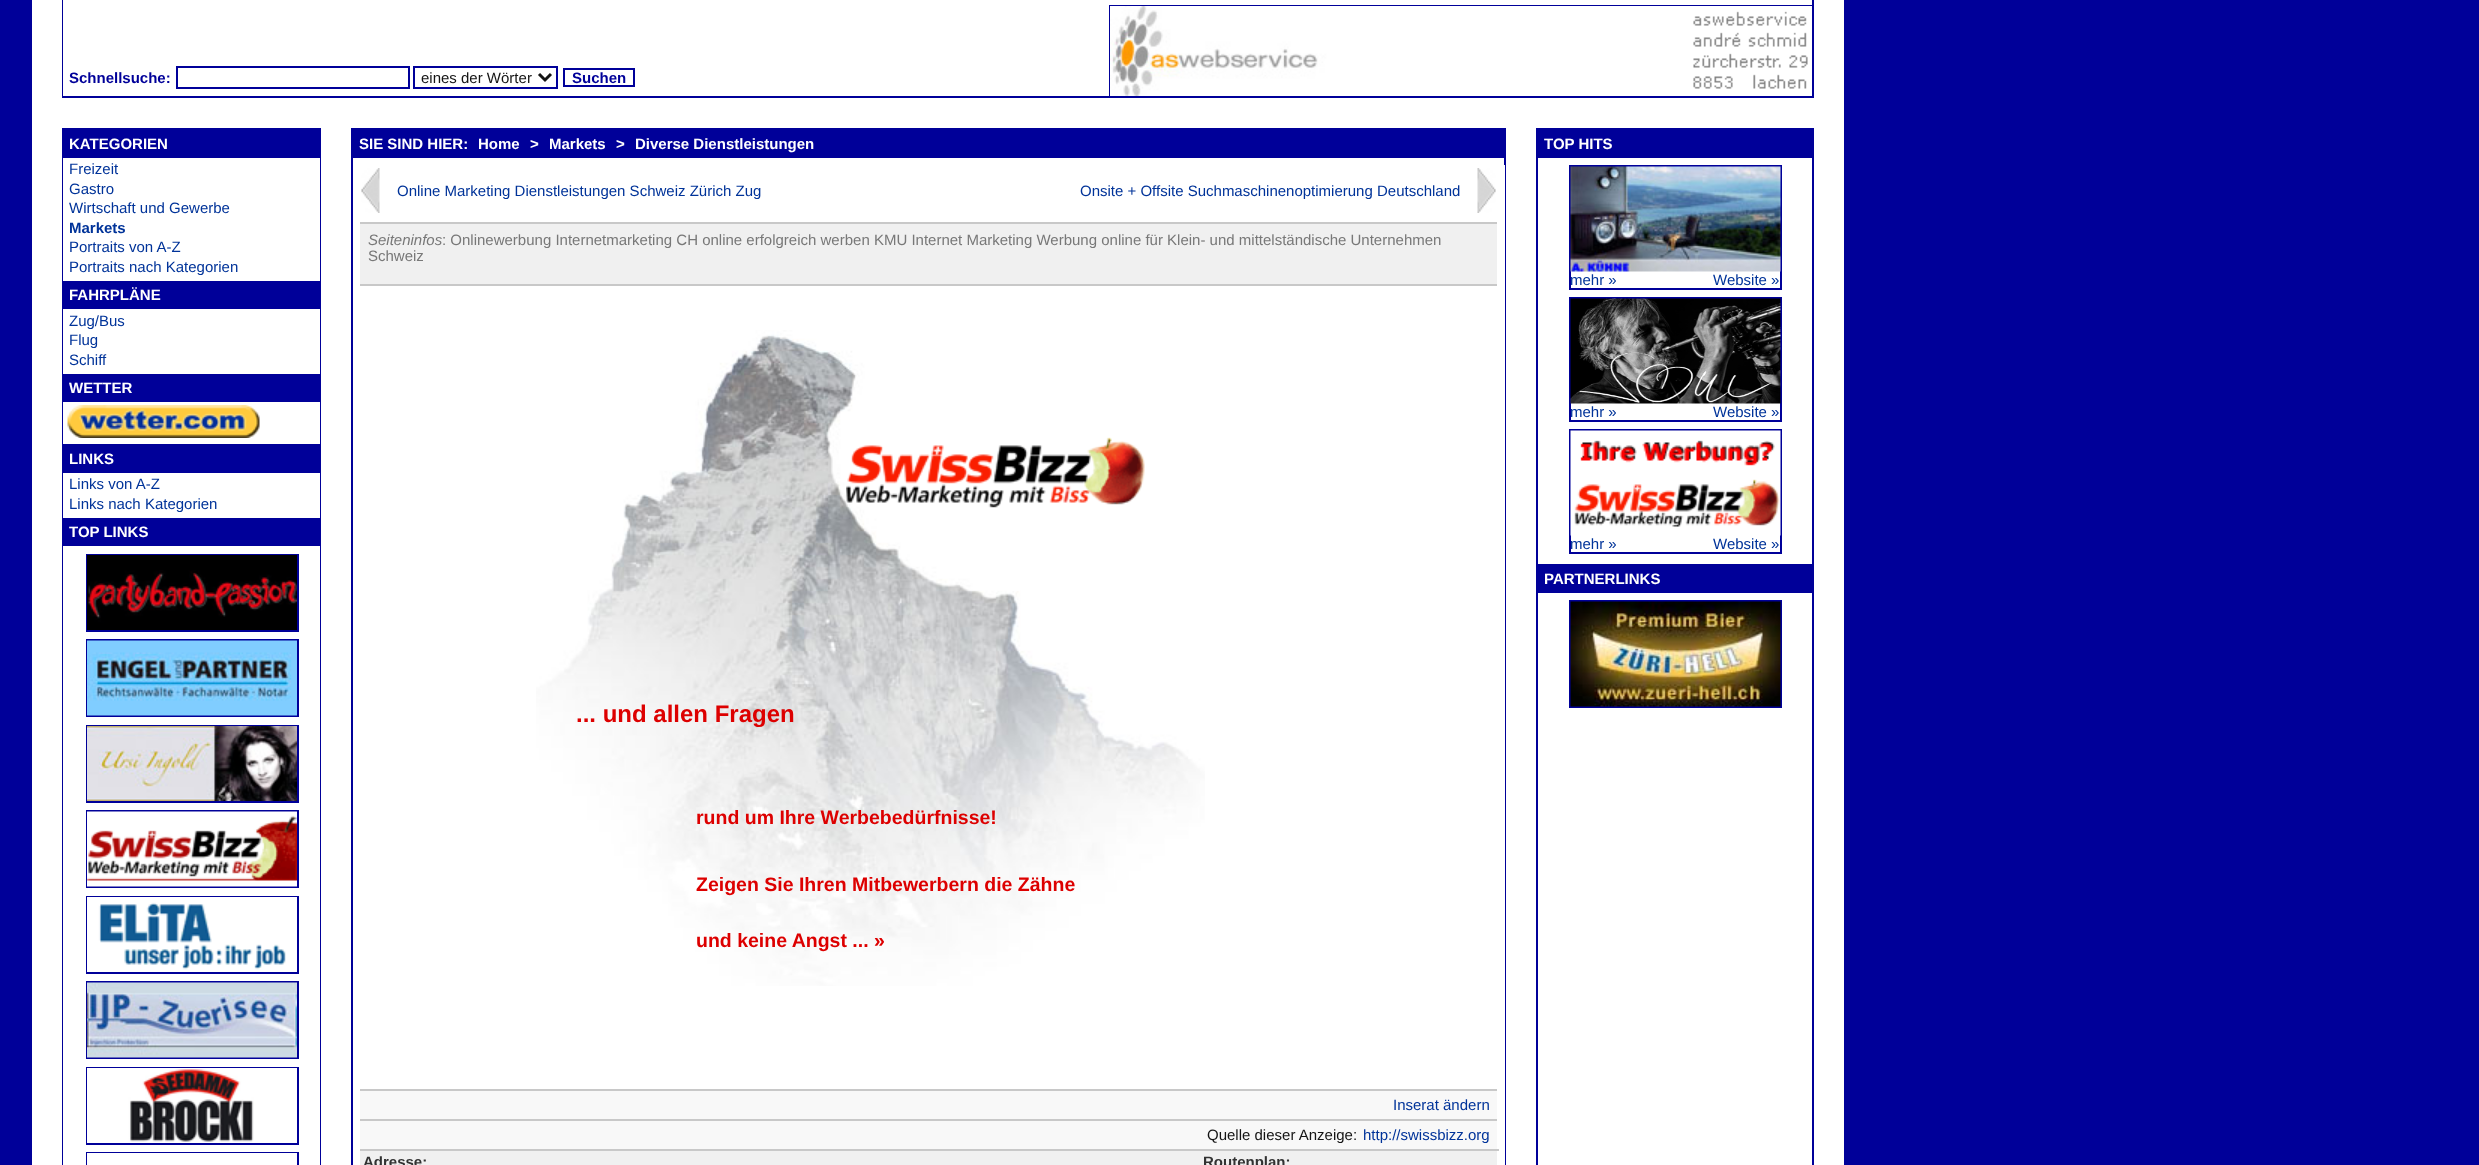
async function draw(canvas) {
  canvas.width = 2479;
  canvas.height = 1165;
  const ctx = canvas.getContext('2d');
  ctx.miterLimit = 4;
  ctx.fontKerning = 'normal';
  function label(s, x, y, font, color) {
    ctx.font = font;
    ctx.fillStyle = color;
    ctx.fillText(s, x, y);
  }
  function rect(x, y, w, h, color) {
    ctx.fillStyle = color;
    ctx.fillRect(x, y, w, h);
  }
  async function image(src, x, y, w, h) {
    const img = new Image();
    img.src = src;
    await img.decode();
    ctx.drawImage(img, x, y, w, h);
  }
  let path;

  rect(0, 0, 2479, 1165, '#009');
  rect(32, 0, 1812, 1165, '#fff');
  ctx.strokeStyle = '#009';
  ctx.lineWidth = 2;
  ctx.strokeRect(63, -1, 1750, 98);
  rect(63, 0, 1, 96, '#fff');
  label('Schnellsuche:', 69, 83, 'bold 15px Liberation Sans', '#009');
  ctx.strokeRect(177, 67, 232, 21);
  ctx.strokeRect(414, 67, 143, 21);
  path = new Path2D('M539 74L545 80L551 74');
  ctx.strokeStyle = '#141414';
  ctx.lineWidth = 3;
  ctx.stroke(path);
  label('eines der Wörter', 421, 83, '15px Liberation Sans', '#141414');
  ctx.strokeStyle = '#009';
  ctx.lineWidth = 2;
  ctx.strokeRect(564, 69, 70, 17);
  label('Suchen', 572, 83, 'bold 15px Liberation Sans', '#009');
  rect(1109, 5, 703, 1, '#009');
  rect(1109, 5, 2, 91, '#009');
  await image('assets/img1.png', 1110, 6, 702, 90);
  ctx.strokeRect(63, 129, 257, 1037);
  rect(64, 130, 255, 28, '#009');
  label('KATEGORIEN', 69, 149, 'bold 15px Liberation Sans', '#fff');
  rect(63, 158, 257, 123, '#fff');
  label('Freizeit', 69, 174, '15px Liberation Sans', '#039');
  label('Gastro', 69, 194, '15px Liberation Sans', '#039');
  label('Wirtschaft und Gewerbe', 69, 213, '15px Liberation Sans', '#039');
  label('Markets', 69, 233, 'bold 15px Liberation Sans', '#039');
  label('Portraits von A-Z', 69, 252, '15px Liberation Sans', '#039');
  label('Portraits nach Kategorien', 69, 272, '15px Liberation Sans', '#039');
  rect(64, 281, 255, 28, '#009');
  label('FAHRPLÄNE', 69, 300, 'bold 15px Liberation Sans', '#fff');
  rect(63, 309, 257, 65, '#fff');
  label('Zug/Bus', 69, 326, '15px Liberation Sans', '#039');
  label('Flug', 69, 345, '15px Liberation Sans', '#039');
  label('Schiff', 69, 365, '15px Liberation Sans', '#039');
  rect(64, 374, 255, 28, '#009');
  label('WETTER', 69, 393, 'bold 15px Liberation Sans', '#fff');
  rect(63, 402, 257, 42, '#fff');
  await image('assets/img2.png', 67, 405, 193, 33);
  rect(64, 444, 255, 29, '#009');
  label('LINKS', 69, 464, 'bold 15px Liberation Sans', '#fff');
  rect(63, 473, 257, 45, '#fff');
  label('Links von A-Z', 69, 489, '15px Liberation Sans', '#039');
  label('Links nach Kategorien', 69, 509, '15px Liberation Sans', '#039');
  rect(64, 518, 255, 28, '#009');
  label('TOP LINKS', 69, 537, 'bold 15px Liberation Sans', '#fff');
  rect(63, 546, 257, 619, '#fff');
  ctx.strokeRect(87, 555, 211, 76);
  await image('assets/img3.png', 87, 555, 210, 75);
  ctx.strokeRect(87, 640, 211, 76);
  await image('assets/img4.png', 87, 640, 210, 76);
  ctx.strokeRect(87, 726, 211, 76);
  await image('assets/img5.png', 87, 726, 210, 75);
  ctx.strokeRect(87, 811, 211, 76);
  await image('assets/img6.png', 87, 811, 210, 76);
  ctx.strokeRect(87, 897, 211, 76);
  await image('assets/img7.png', 87, 897, 210, 75);
  ctx.strokeRect(87, 982, 211, 76);
  await image('assets/img8.png', 87, 982, 210, 76);
  ctx.strokeRect(87, 1068, 211, 76);
  await image('assets/img9.png', 87, 1068, 210, 75);
  ctx.strokeRect(87, 1153, 211, 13);
  rect(87, 1153, 210, 12, '#fff');
  ctx.strokeRect(352, 129, 1153, 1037);
  rect(353, 130, 1151, 28, '#009');
  label('SIE SIND HIER:', 359, 149, 'bold 15px Liberation Sans', '#fff');
  label('Home', 478, 149, 'bold 15px Liberation Sans', '#fff');
  label('>', 530, 149, 'bold 15px Liberation Sans', '#fff');
  label('Markets', 549, 149, 'bold 15px Liberation Sans', '#fff');
  label('>', 616, 149, 'bold 15px Liberation Sans', '#fff');
  label('Diverse Dienstleistungen', 635, 149, 'bold 15px Liberation Sans', '#fff');
  rect(1504, 165, 1, 1000, '#fff');
  await image('assets/img10.png', 361, 168, 19, 45);
  label('Online Marketing Dienstleistungen Schweiz Zürich Zug', 397, 196, '15px Liberation Sans', '#039');
  label('Onsite + Offsite Suchmaschinenoptimierung Deutschland', 1080, 196, '15px Liberation Sans', '#039');
  await image('assets/img11.png', 1477, 168, 19, 45);
  rect(360, 224, 1137, 60, '#f0f0f0');
  rect(360, 222, 1137, 2, '#c8c8c8');
  rect(360, 284, 1137, 2, '#c8c8c8');
  label('Seiteninfos', 368, 245, 'italic 15px Liberation Sans', '#787878');
  label(': Onlinewerbung Internetmarketing CH online erfolgreich werben KMU Internet Marketing Werbung online für Klein- und mittelständische Unternehmen', 442, 245, '15px Liberation Sans', '#787878');
  label('Schweiz', 368, 261, '15px Liberation Sans', '#787878');
  await image('assets/img12.png', 536, 330, 669, 656);
  await image('assets/img13.png', 846, 437, 299, 71);
  label('... und allen Fragen', 576, 722, 'bold 24px Liberation Sans', '#d00');
  label('rund um Ihre Werbebedürfnisse!', 696, 824, 'bold 19.5px Liberation Sans', '#d00');
  label('Zeigen Sie Ihren Mitbewerbern die Zähne', 696, 891, 'bold 19.5px Liberation Sans', '#d00');
  label('und keine Angst ... »', 696, 947, 'bold 19.5px Liberation Sans', '#d00');
  rect(360, 1091, 1137, 28, '#f8f8f8');
  rect(360, 1089, 1137, 2, '#c8c8c8');
  label('Inserat ändern', 1393, 1110, '15px Liberation Sans', '#039');
  rect(360, 1121, 1137, 28, '#f8f8f8');
  rect(360, 1119, 1137, 2, '#c8c8c8');
  label('Quelle dieser Anzeige:', 1207, 1140, '15px Liberation Sans', '#141414');
  label('http://swissbizz.org', 1363, 1140, '15px Liberation Sans', '#039');
  rect(360, 1151, 1137, 14, '#f0f0f0');
  label('Adresse:', 363, 1167, 'bold 15px Liberation Sans', '#323232');
  rect(360, 1149, 1139, 2, '#c8c8c8');
  label('Routenplan:', 1203, 1167, 'bold 15px Liberation Sans', '#323232');
  ctx.strokeRect(1537, 129, 276, 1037);
  rect(1538, 130, 274, 28, '#009');
  label('TOP HITS', 1544, 149, 'bold 15px Liberation Sans', '#fff');
  ctx.strokeRect(1570, 166, 211, 123);
  await image('assets/img14.png', 1570, 166, 211, 106);
  label('mehr »', 1570, 285, '15px Liberation Sans', '#039');
  label('Website »', 1713, 285, '15px Liberation Sans', '#039');
  ctx.strokeRect(1570, 298, 211, 123);
  await image('assets/img15.png', 1570, 298, 211, 106);
  label('mehr »', 1570, 417, '15px Liberation Sans', '#039');
  label('Website »', 1713, 417, '15px Liberation Sans', '#039');
  ctx.strokeRect(1570, 430, 211, 123);
  await image('assets/img16.png', 1570, 430, 211, 106);
  label('mehr »', 1570, 549, '15px Liberation Sans', '#039');
  label('Website »', 1713, 549, '15px Liberation Sans', '#039');
  rect(1538, 564, 274, 29, '#009');
  label('PARTNERLINKS', 1544, 584, 'bold 15px Liberation Sans', '#fff');
  ctx.strokeRect(1570, 601, 211, 106);
  await image('assets/img17.png', 1570, 601, 211, 106);
}

draw(document.querySelector('canvas'));
